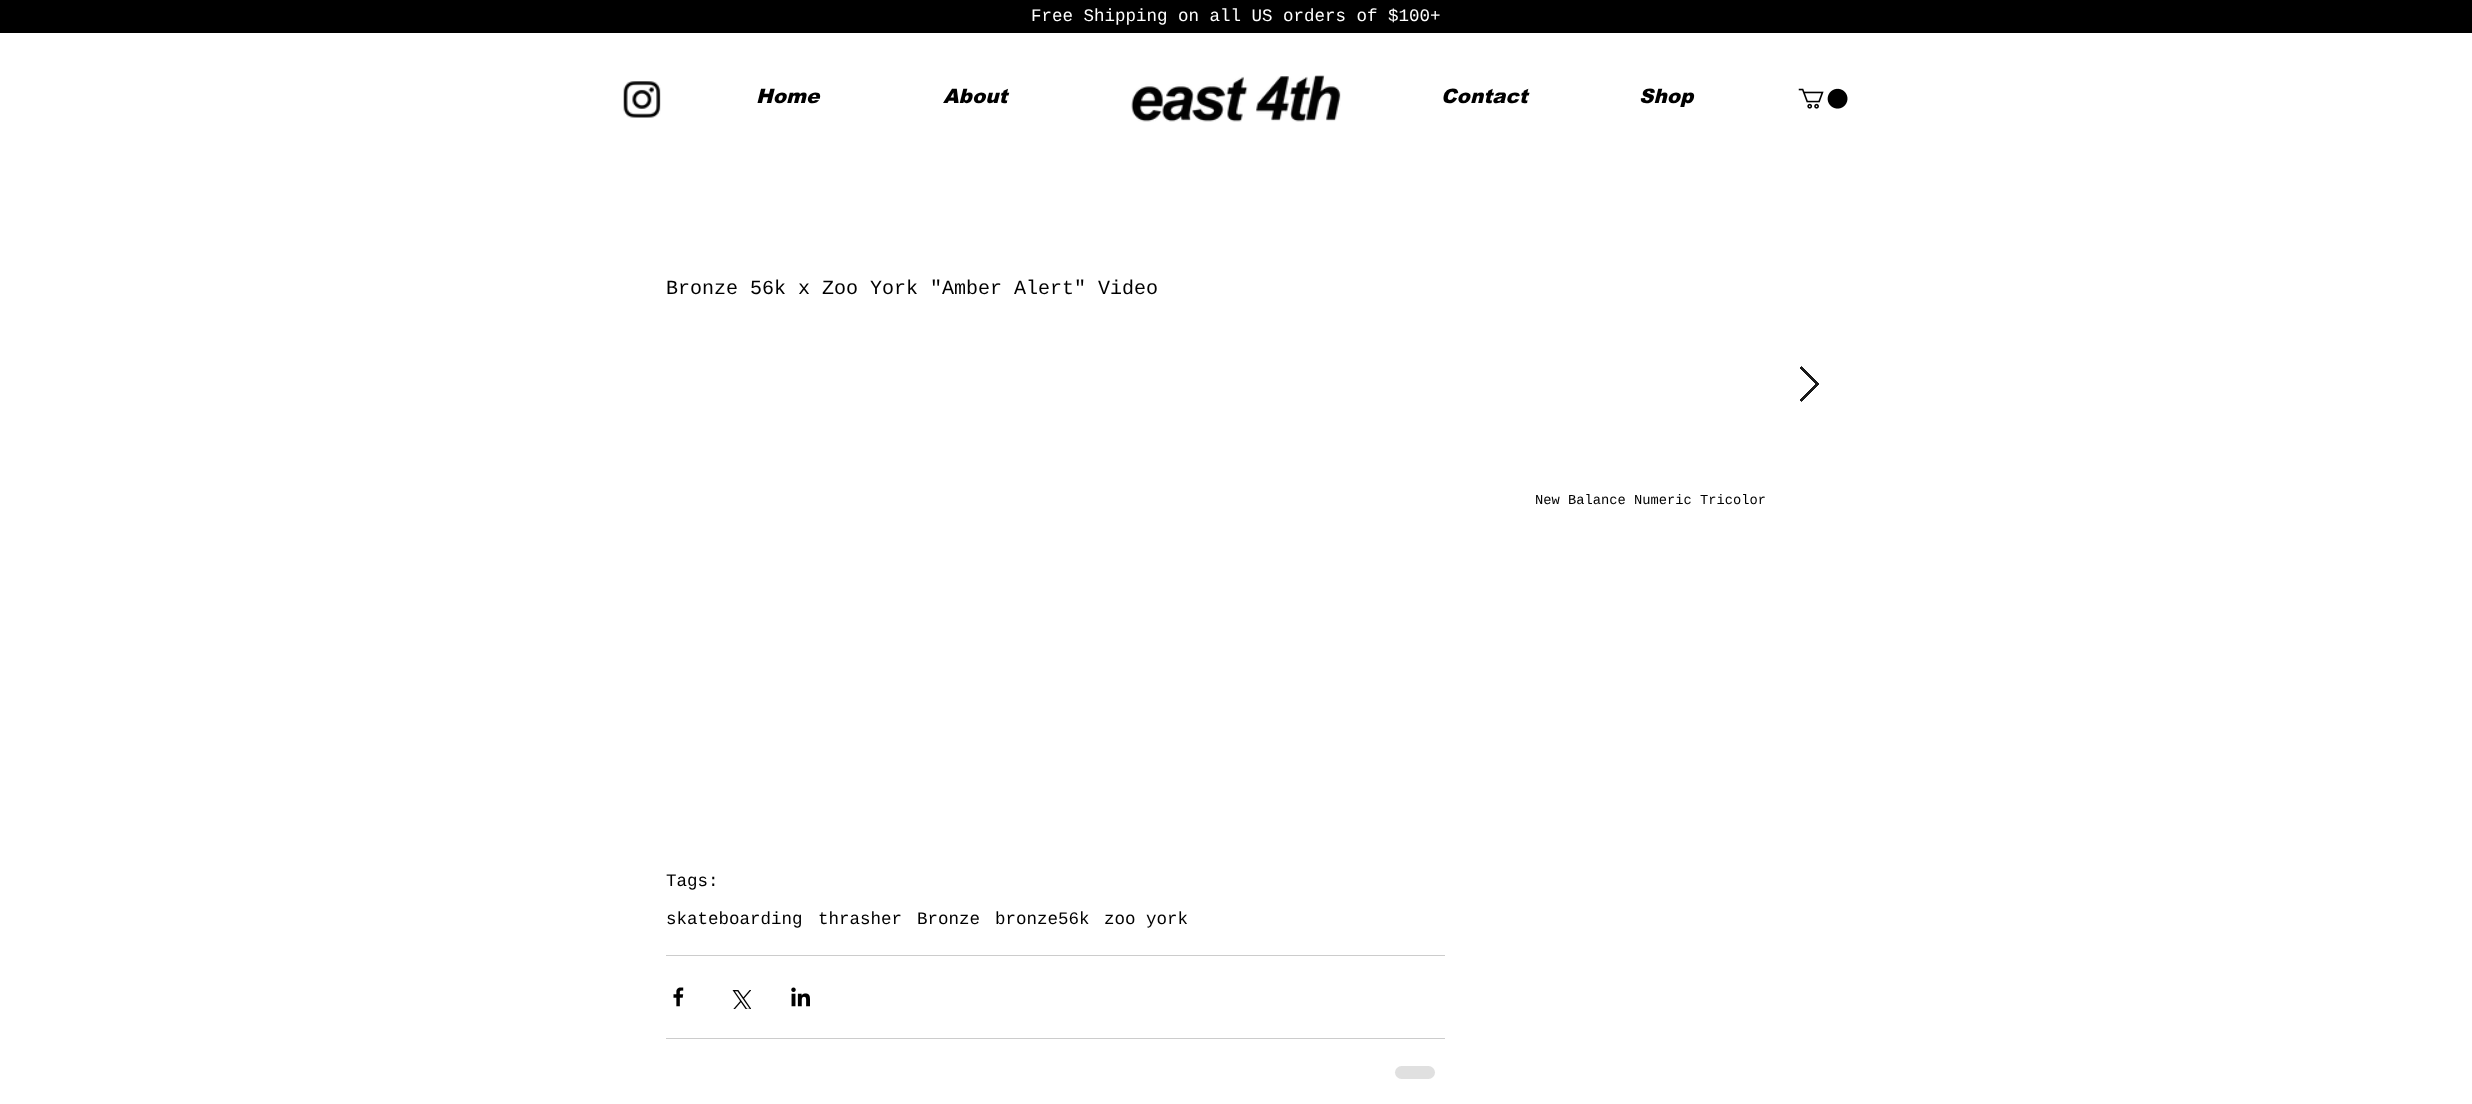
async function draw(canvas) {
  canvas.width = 2472;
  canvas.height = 1104;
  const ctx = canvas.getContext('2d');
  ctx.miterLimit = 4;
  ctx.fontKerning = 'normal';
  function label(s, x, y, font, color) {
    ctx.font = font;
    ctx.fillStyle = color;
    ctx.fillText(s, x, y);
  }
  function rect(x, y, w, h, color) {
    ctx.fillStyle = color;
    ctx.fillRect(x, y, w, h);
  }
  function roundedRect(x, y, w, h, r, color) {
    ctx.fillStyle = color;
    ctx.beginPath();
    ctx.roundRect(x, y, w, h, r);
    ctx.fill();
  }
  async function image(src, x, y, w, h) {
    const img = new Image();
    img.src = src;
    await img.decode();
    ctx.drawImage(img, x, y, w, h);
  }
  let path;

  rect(0, 0, 2472, 1104, '#fff');
  rect(0, 0, 2472, 33, '#000');
  label('Free Shipping on all US orders of $100+', 1031, 21, '17.5px Liberation Mono', '#fff');
  await image('assets/img1.png', 623, 81, 38, 37);
  label('Home', 756, 103, 'italic 900 20px arial', '#000');
  label('About', 943, 103, 'italic 900 20px arial', '#000');
  await image('assets/img2.png', 1131, 75, 210, 47);
  label('Contact', 1441, 103, 'italic 900 20px arial', '#000');
  label('Shop', 1639, 103, 'italic 900 20px arial', '#000');
  await image('assets/img3.png', 1798, 88, 50, 21);
  label('Bronze 56k x Zoo York "Amber Alert" Video', 666, 294, '20px Liberation Mono', '#000');
  label('Tags:', 666, 886, '17.5px Liberation Mono', '#000');
  label('skateboarding', 666, 924, '17.5px Liberation Mono', '#000');
  label('thrasher', 818, 924, '17.5px Liberation Mono', '#000');
  label('Bronze', 917, 924, '17.5px Liberation Mono', '#000');
  label('bronze56k', 995, 924, '17.5px Liberation Mono', '#000');
  label('zoo york', 1104, 924, '17.5px Liberation Mono', '#000');
  rect(666, 955, 779, 1, '#ccc');
  await image('assets/img4.png', 673, 987, 11, 20);
  await image('assets/img5.png', 732, 990, 19, 19);
  await image('assets/img6.png', 791, 987, 19, 20);
  rect(666, 1038, 779, 1, '#ccc');
  roundedRect(1395, 1066, 40, 13, 6.5, '#e0e0e0');
  ctx.fillStyle = '#1a1a1a';
  path = new Path2D('M1800 368L1801.5 366.5L1819 384L1801.5 401.5L1800 400L1816 384Z');
  ctx.fill(path);
  ctx.strokeStyle = '#1a1a1a';
  ctx.stroke(path);
  label('New Balance Numeric Tricolor', 1535, 504, '13.75px Liberation Mono', '#000');
}

draw(document.querySelector('canvas'));
